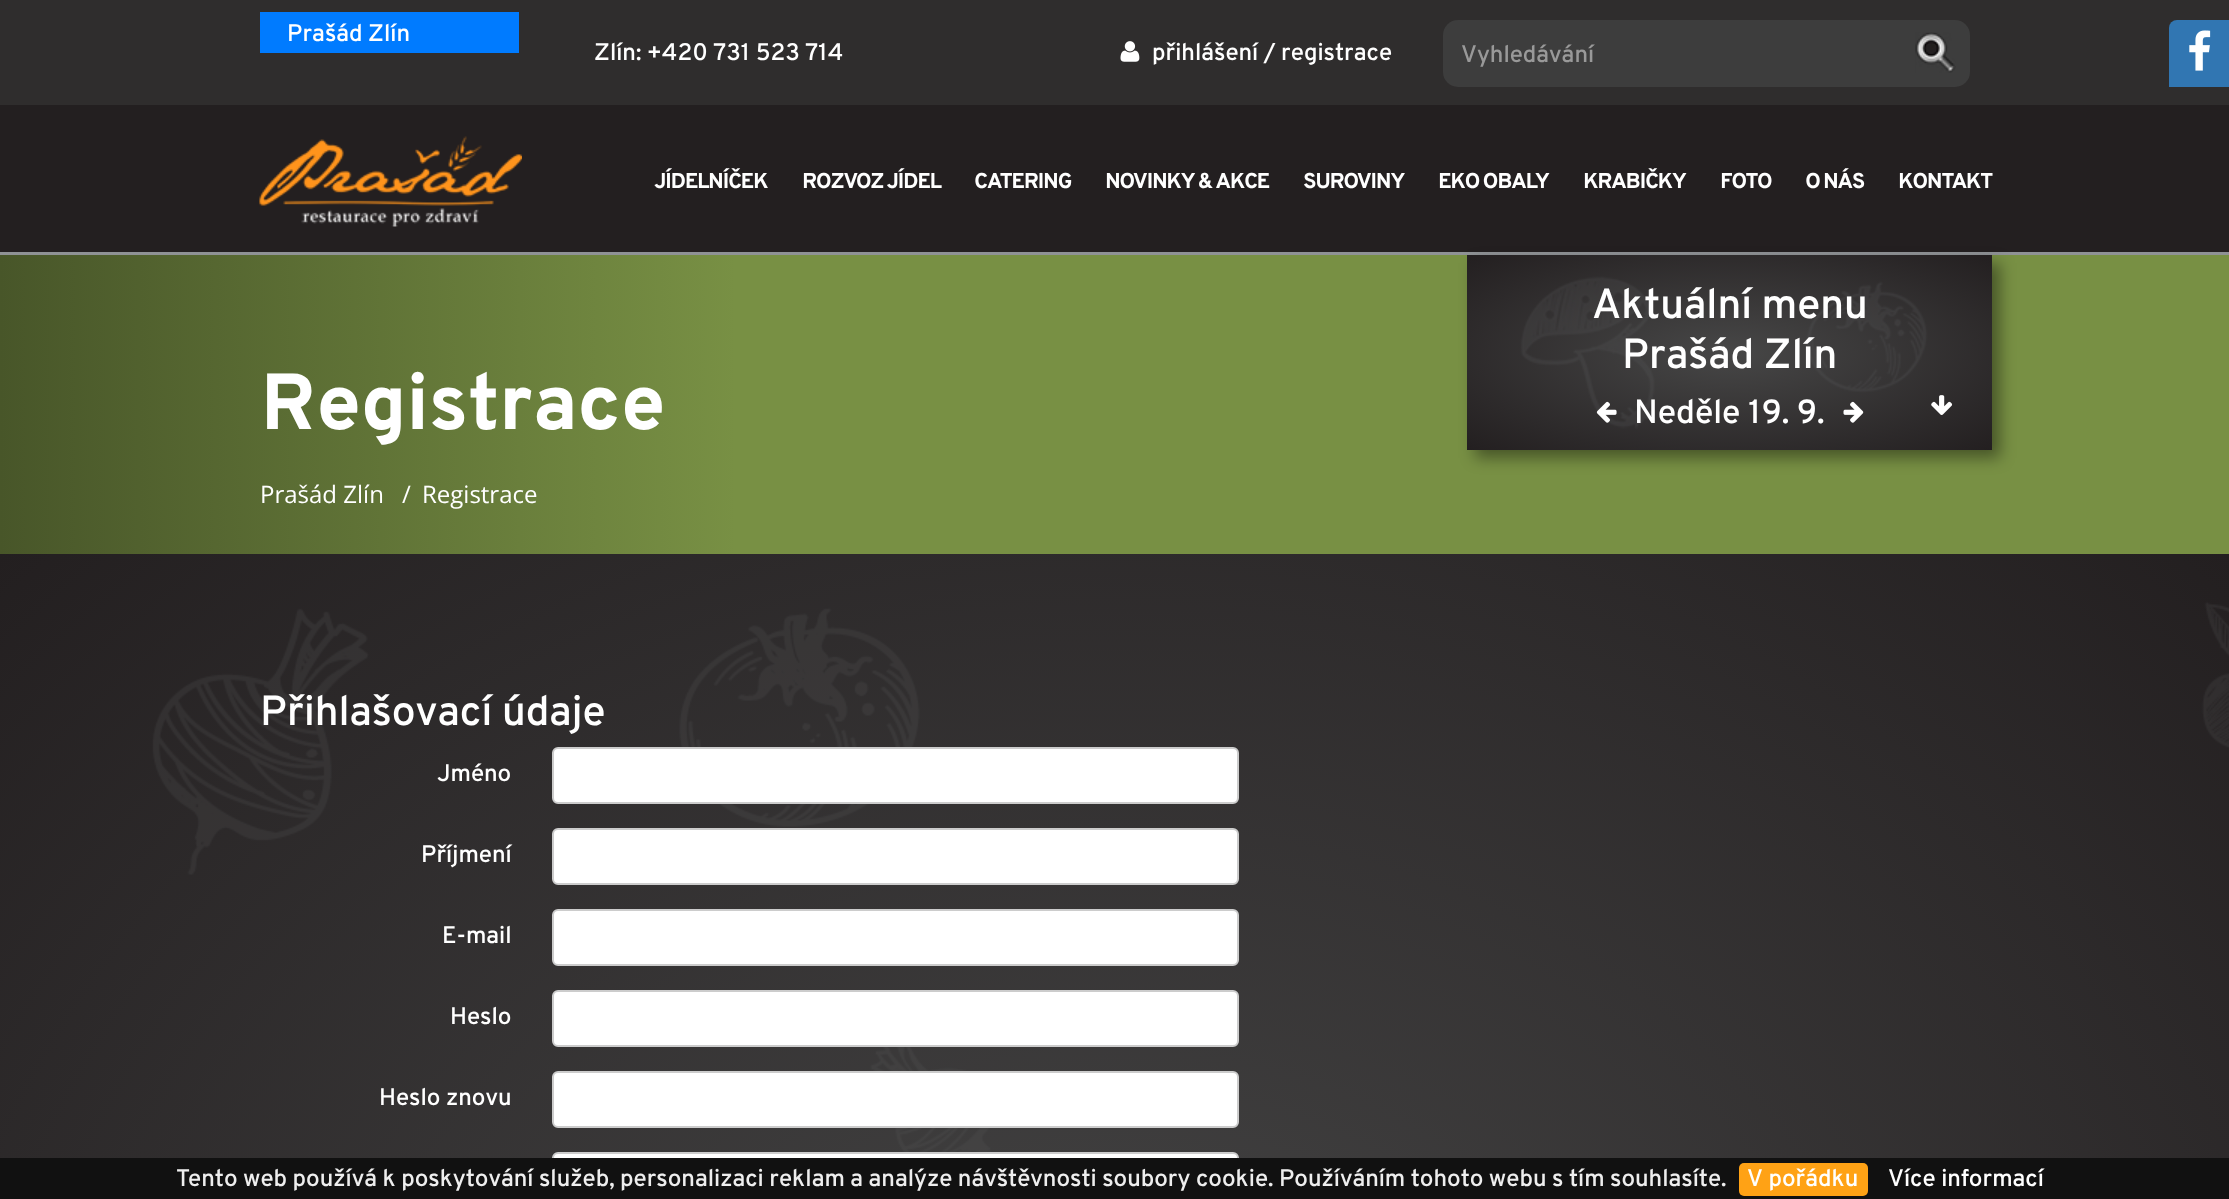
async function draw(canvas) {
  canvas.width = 2229;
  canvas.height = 1199;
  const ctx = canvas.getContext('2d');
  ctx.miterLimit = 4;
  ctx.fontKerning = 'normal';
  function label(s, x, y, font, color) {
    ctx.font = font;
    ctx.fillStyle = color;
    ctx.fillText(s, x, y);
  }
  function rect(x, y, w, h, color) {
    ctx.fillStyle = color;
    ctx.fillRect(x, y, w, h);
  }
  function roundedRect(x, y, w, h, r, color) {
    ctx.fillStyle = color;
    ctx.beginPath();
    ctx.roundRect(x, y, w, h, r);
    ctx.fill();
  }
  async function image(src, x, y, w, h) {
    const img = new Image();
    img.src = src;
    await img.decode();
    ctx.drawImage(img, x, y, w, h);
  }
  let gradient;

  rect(0, 0, 2229, 1199, '#2f2d2d');
  rect(260, 12, 259, 41, '#007bff');
  label('Prašád Zlín', 287, 41, '24px Overpass', '#fff');
  label('Zlín: +420 731 523 714', 594, 60, '24px Overpass', '#fff');
  await image('assets/img1.png', 1120, 41, 20, 21);
  label('přihlášení / registrace', 1152, 60, '24px Overpass', '#fff');
  ctx.fillStyle = '#3d3d3d';
  ctx.beginPath();
  ctx.roundRect(1443, 20, 459, 67, [15, 0, 0, 15]);
  ctx.fill();
  label('Vyhledávání', 1461, 62, '24px Overpass', '#999');
  ctx.fillStyle = '#3d3d3d';
  ctx.beginPath();
  ctx.roundRect(1902, 20, 68, 67, [0, 15, 15, 0]);
  ctx.fill();
  await image('assets/img2.png', 1915, 32, 41, 41);
  ctx.fillStyle = '#3176b2';
  ctx.beginPath();
  ctx.roundRect(2169, 20, 60, 67, [8, 0, 0, 0]);
  ctx.fill();
  await image('assets/img3.png', 2189, 30, 22, 41);
  rect(0, 105, 2229, 147, '#231f20');
  rect(0, 252, 2229, 3, '#8f9295');
  await image('assets/img4.png', 259, 136, 263, 91);
  ctx.letterSpacing = '-1.5px';
  label('JÍDELNÍČEK', 654, 188, 'bold 21.5px Overpass', '#fff');
  label('ROZVOZ JÍDEL', 802, 188, 'bold 21.5px Overpass', '#fff');
  label('CATERING', 974, 188, 'bold 21.5px Overpass', '#fff');
  label('NOVINKY & AKCE', 1105, 188, 'bold 21.5px Overpass', '#fff');
  label('SUROVINY', 1303, 188, 'bold 21.5px Overpass', '#fff');
  label('EKO OBALY', 1438, 188, 'bold 21.5px Overpass', '#fff');
  label('KRABIČKY', 1583, 188, 'bold 21.5px Overpass', '#fff');
  label('FOTO', 1720, 188, 'bold 21.5px Overpass', '#fff');
  label('O NÁS', 1805, 188, 'bold 21.5px Overpass', '#fff');
  label('KONTAKT', 1898, 188, 'bold 21.5px Overpass', '#fff');
  gradient = ctx.createLinearGradient(0, 404, 2229, 404);
  gradient.addColorStop(0, '#485629');
  gradient.addColorStop(0.33, '#789044');
  gradient.addColorStop(1, '#789044');
  ctx.fillStyle = gradient;
  ctx.fillRect(0, 255, 2229, 299);
  ctx.fillStyle = '#00000066';
  ctx.filter = 'blur(7.5px)';
  ctx.beginPath();
  ctx.rect(1475, 263, 525, 195);
  ctx.fill();
  ctx.filter = 'none';
  await image('assets/img5.png', 1467, 255, 525, 195);
  ctx.letterSpacing = '0px';
  label('Aktuální menu', 1592, 318, '42px Overpass', '#fff');
  label('Prašád Zlín', 1622, 368, '42px Overpass', '#fff');
  await image('assets/img6.png', 1596, 401, 21, 22);
  label('Neděle 19. 9.', 1634, 423, '33.5px Overpass', '#fff');
  await image('assets/img7.png', 1843, 401, 21, 22);
  await image('assets/img8.png', 1931, 395, 22, 20);
  label('Registrace', 260, 429, 'bold 79.25px Overpass', '#fff');
  label('Prašád Zlín', 260, 503, '24px Open Sans', '#fff');
  label('/', 402, 503, '24px Open Sans', '#fff');
  label('Registrace', 422, 503, '24px Open Sans', '#fff');
  await image('assets/img9.png', 0, 554, 2229, 604);
  label('Přihlašovací údaje', 260, 725, '42px Overpass', '#fff');
  label('Jméno', 437, 781, '24px Overpass', '#fff');
  ctx.beginPath();
  ctx.roundRect(553, 748, 685, 55, 5);
  ctx.fill();
  ctx.strokeStyle = '#ccc';
  ctx.lineWidth = 2;
  ctx.stroke();
  label('Příjmení', 421, 862, '24px Overpass', '#fff');
  ctx.beginPath();
  ctx.roundRect(553, 829, 685, 55, 5);
  ctx.fill();
  ctx.stroke();
  label('E-mail', 442, 943, '24px Overpass', '#fff');
  ctx.beginPath();
  ctx.roundRect(553, 910, 685, 55, 5);
  ctx.fill();
  ctx.stroke();
  label('Heslo', 450, 1024, '24px Overpass', '#fff');
  ctx.beginPath();
  ctx.roundRect(553, 991, 685, 55, 5);
  ctx.fill();
  ctx.stroke();
  label('Heslo znovu', 379, 1105, '24px Overpass', '#fff');
  ctx.beginPath();
  ctx.roundRect(553, 1072, 685, 55, 5);
  ctx.fill();
  ctx.stroke();
  ctx.beginPath();
  ctx.roundRect(553, 1153, 685, 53, 5);
  ctx.fill();
  ctx.stroke();
  rect(0, 1158, 2229, 41, '#111');
  label('Tento web používá k poskytování služeb, personalizaci reklam a analýze návštěvnosti soubory cookie. Používáním tohoto webu s tím souhlasíte.', 176, 1186, '24px Overpass', '#eee');
  roundedRect(1739, 1163, 129, 33, 5, '#ffa215');
  label('V pořádku', 1747, 1186, '24px Overpass', '#fff');
  label('Více informací', 1888, 1186, '24px Overpass', '#fff');
}

draw(document.querySelector('canvas'));
